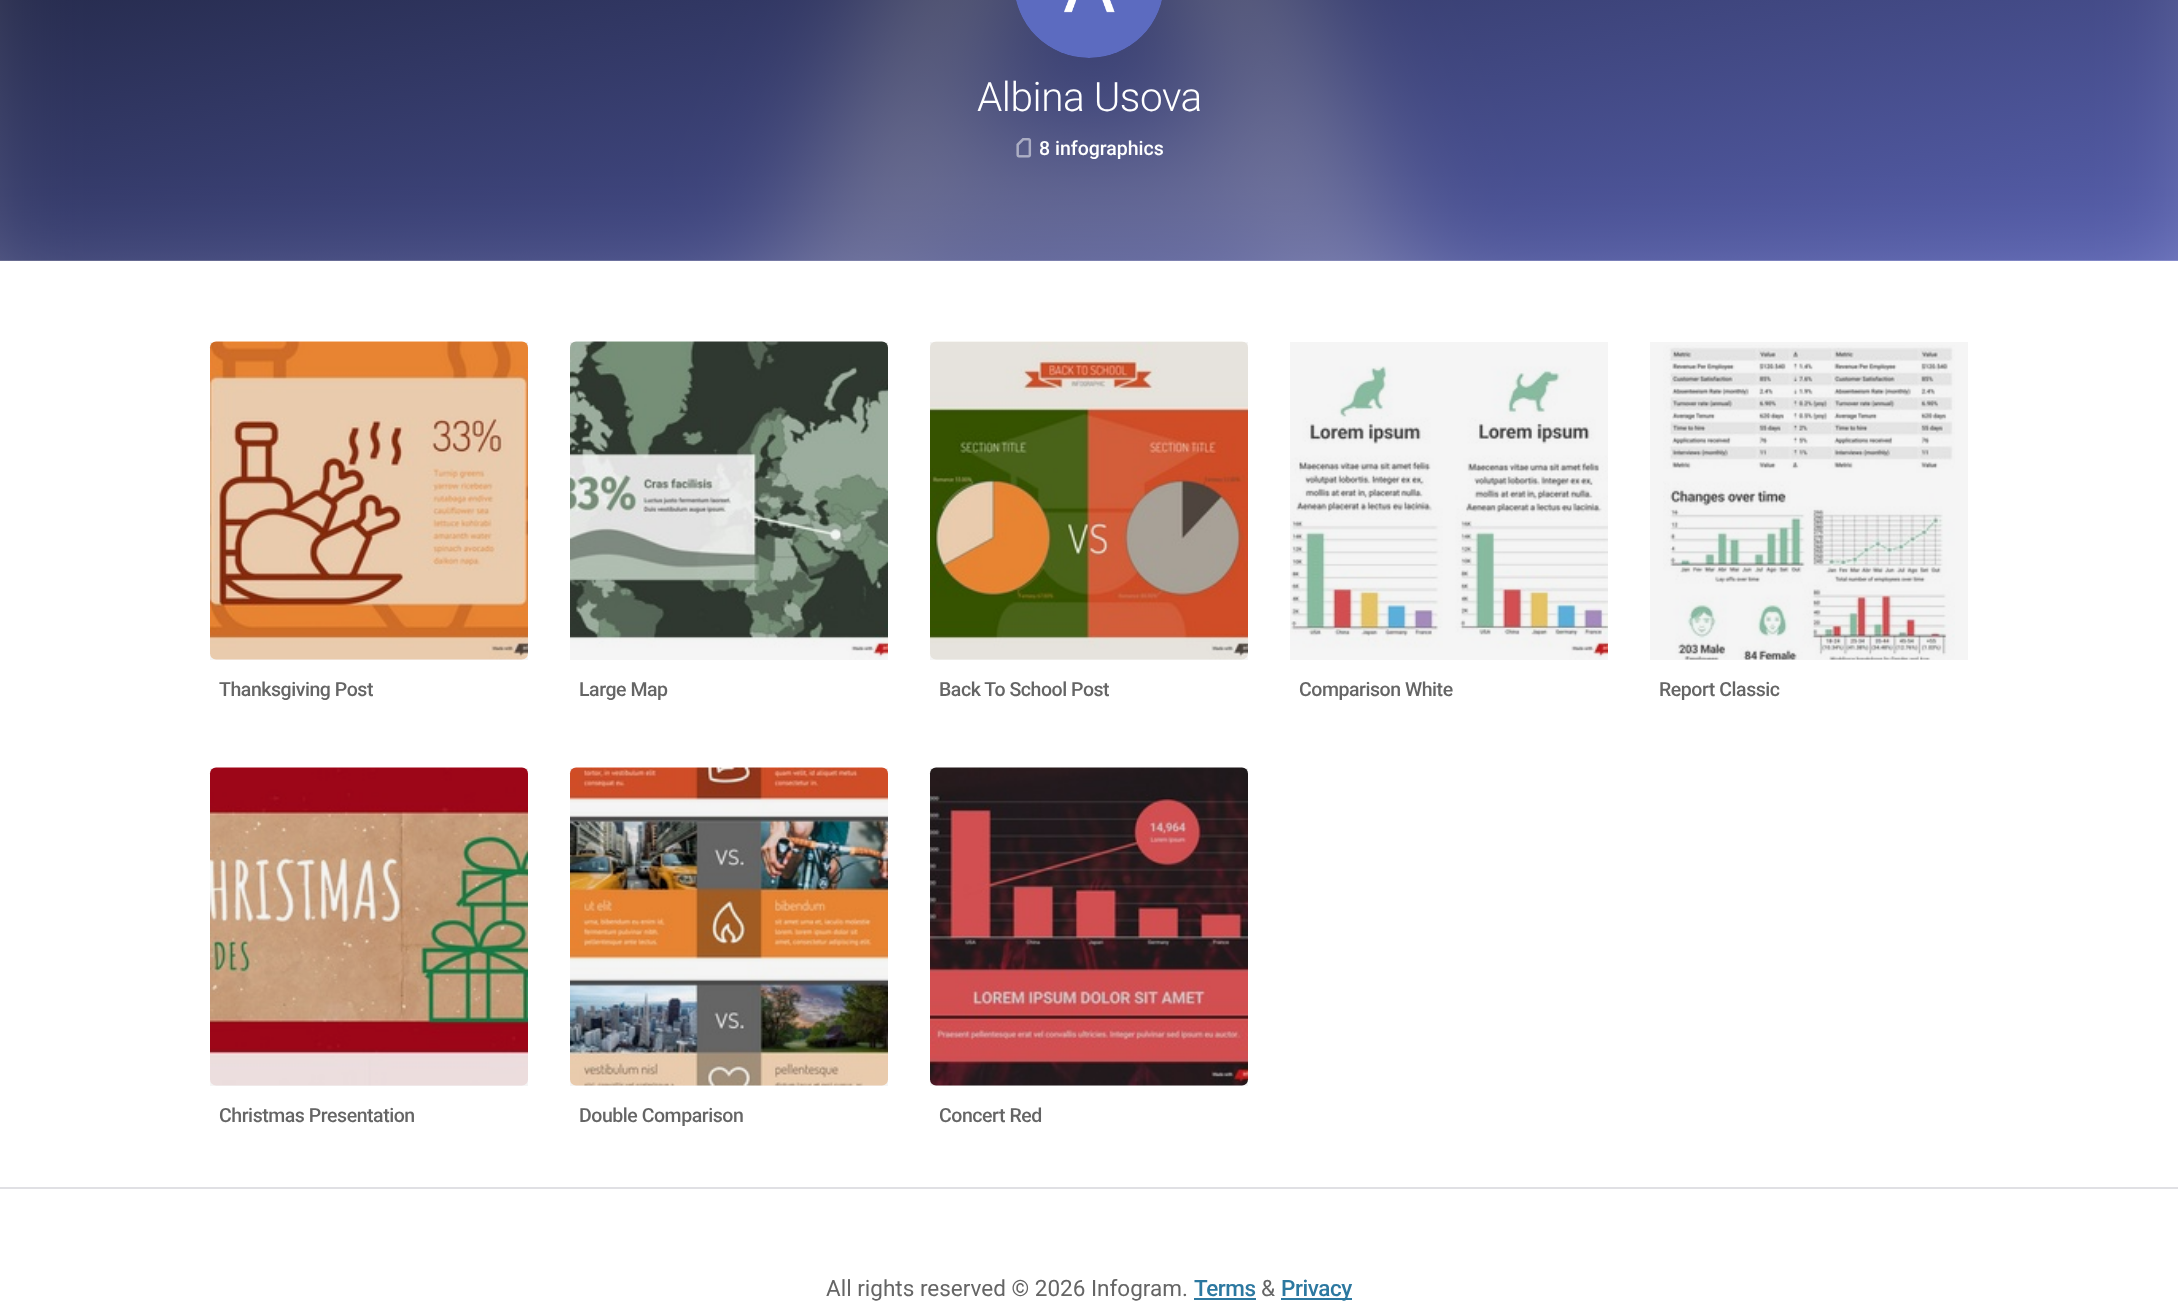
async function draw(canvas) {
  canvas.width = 2178;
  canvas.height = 1313;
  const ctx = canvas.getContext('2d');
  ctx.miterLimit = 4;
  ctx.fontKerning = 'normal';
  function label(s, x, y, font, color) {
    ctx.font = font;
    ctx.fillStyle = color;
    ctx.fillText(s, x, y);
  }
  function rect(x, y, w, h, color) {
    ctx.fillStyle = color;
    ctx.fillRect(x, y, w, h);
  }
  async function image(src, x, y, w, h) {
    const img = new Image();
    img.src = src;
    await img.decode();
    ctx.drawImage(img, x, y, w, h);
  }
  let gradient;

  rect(0, 0, 2178, 1313, '#fff');
  await image('assets/img1.png', 0, 0, 2178, 261);
  gradient = ctx.createLinearGradient(1000, -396, 1178, 468);
  gradient.addColorStop(0, '#01010199');
  gradient.addColorStop(1, '#666dc799');
  ctx.fillStyle = gradient;
  ctx.fillRect(0, 0, 2178, 261);
  await image('assets/img2.png', 1016, 0, 146, 58);
  ctx.letterSpacing = '-0.45px';
  label('Albina Usova', 977, 111, '300 40.5px Roboto', '#fff');
  await image('assets/img3.png', 1016, 138, 16, 20);
  ctx.letterSpacing = '0px';
  label('8 infographics', 1039, 155, '500 19.5px Roboto', '#fff');
  await image('assets/img4.png', 209, 341, 319, 319);
  rect(210, 342, 318, 318, '#0000000a');
  ctx.letterSpacing = '-0.45px';
  label('Thanksgiving Post', 219, 696, '500 19.5px Roboto', '#656565');
  await image('assets/img5.png', 570, 341, 318, 319);
  rect(570, 342, 318, 318, '#0000000a');
  label('Large Map', 579, 696, '500 19.5px Roboto', '#656565');
  await image('assets/img6.png', 930, 341, 318, 319);
  rect(930, 342, 318, 318, '#0000000a');
  label('Back To School Post', 939, 696, '500 19.5px Roboto', '#656565');
  await image('assets/img7.png', 1290, 366, 318, 294);
  rect(1290, 342, 318, 318, '#0000000a');
  label('Comparison White', 1299, 696, '500 19.5px Roboto', '#656565');
  await image('assets/img8.png', 1663, 345, 292, 315);
  rect(1650, 342, 318, 318, '#0000000a');
  label('Report Classic', 1659, 696, '500 19.5px Roboto', '#656565');
  await image('assets/img9.png', 209, 767, 319, 319);
  rect(210, 768, 318, 318, '#0000000a');
  label('Christmas Presentation', 219, 1122, '500 19.5px Roboto', '#656565');
  await image('assets/img10.png', 569, 767, 319, 319);
  rect(570, 768, 318, 318, '#0000000a');
  label('Double Comparison', 579, 1122, '500 19.5px Roboto', '#656565');
  await image('assets/img11.png', 929, 767, 319, 319);
  rect(930, 768, 318, 318, '#0000000a');
  label('Concert Red', 939, 1122, '500 19.5px Roboto', '#656565');
  rect(0, 1187, 2178, 2, '#e0e0e4');
  ctx.letterSpacing = '0px';
  label('All rights reserved © 2026 Infogram.', 826, 1296, '22.5px Roboto', '#656565');
  ctx.letterSpacing = '-0.45px';
  label('Terms', 1194, 1296, '500 22.5px Roboto', '#2c78a0');
  rect(1194, 1298, 62, 2, '#2c78a0');
  ctx.letterSpacing = '0px';
  label('&', 1261, 1296, '22.5px Roboto', '#656565');
  rect(1281, 1298, 71, 2, '#2c78a0');
  ctx.letterSpacing = '-0.45px';
  label('Privacy', 1281, 1296, '500 22.5px Roboto', '#2c78a0');
}

draw(document.querySelector('canvas'));
